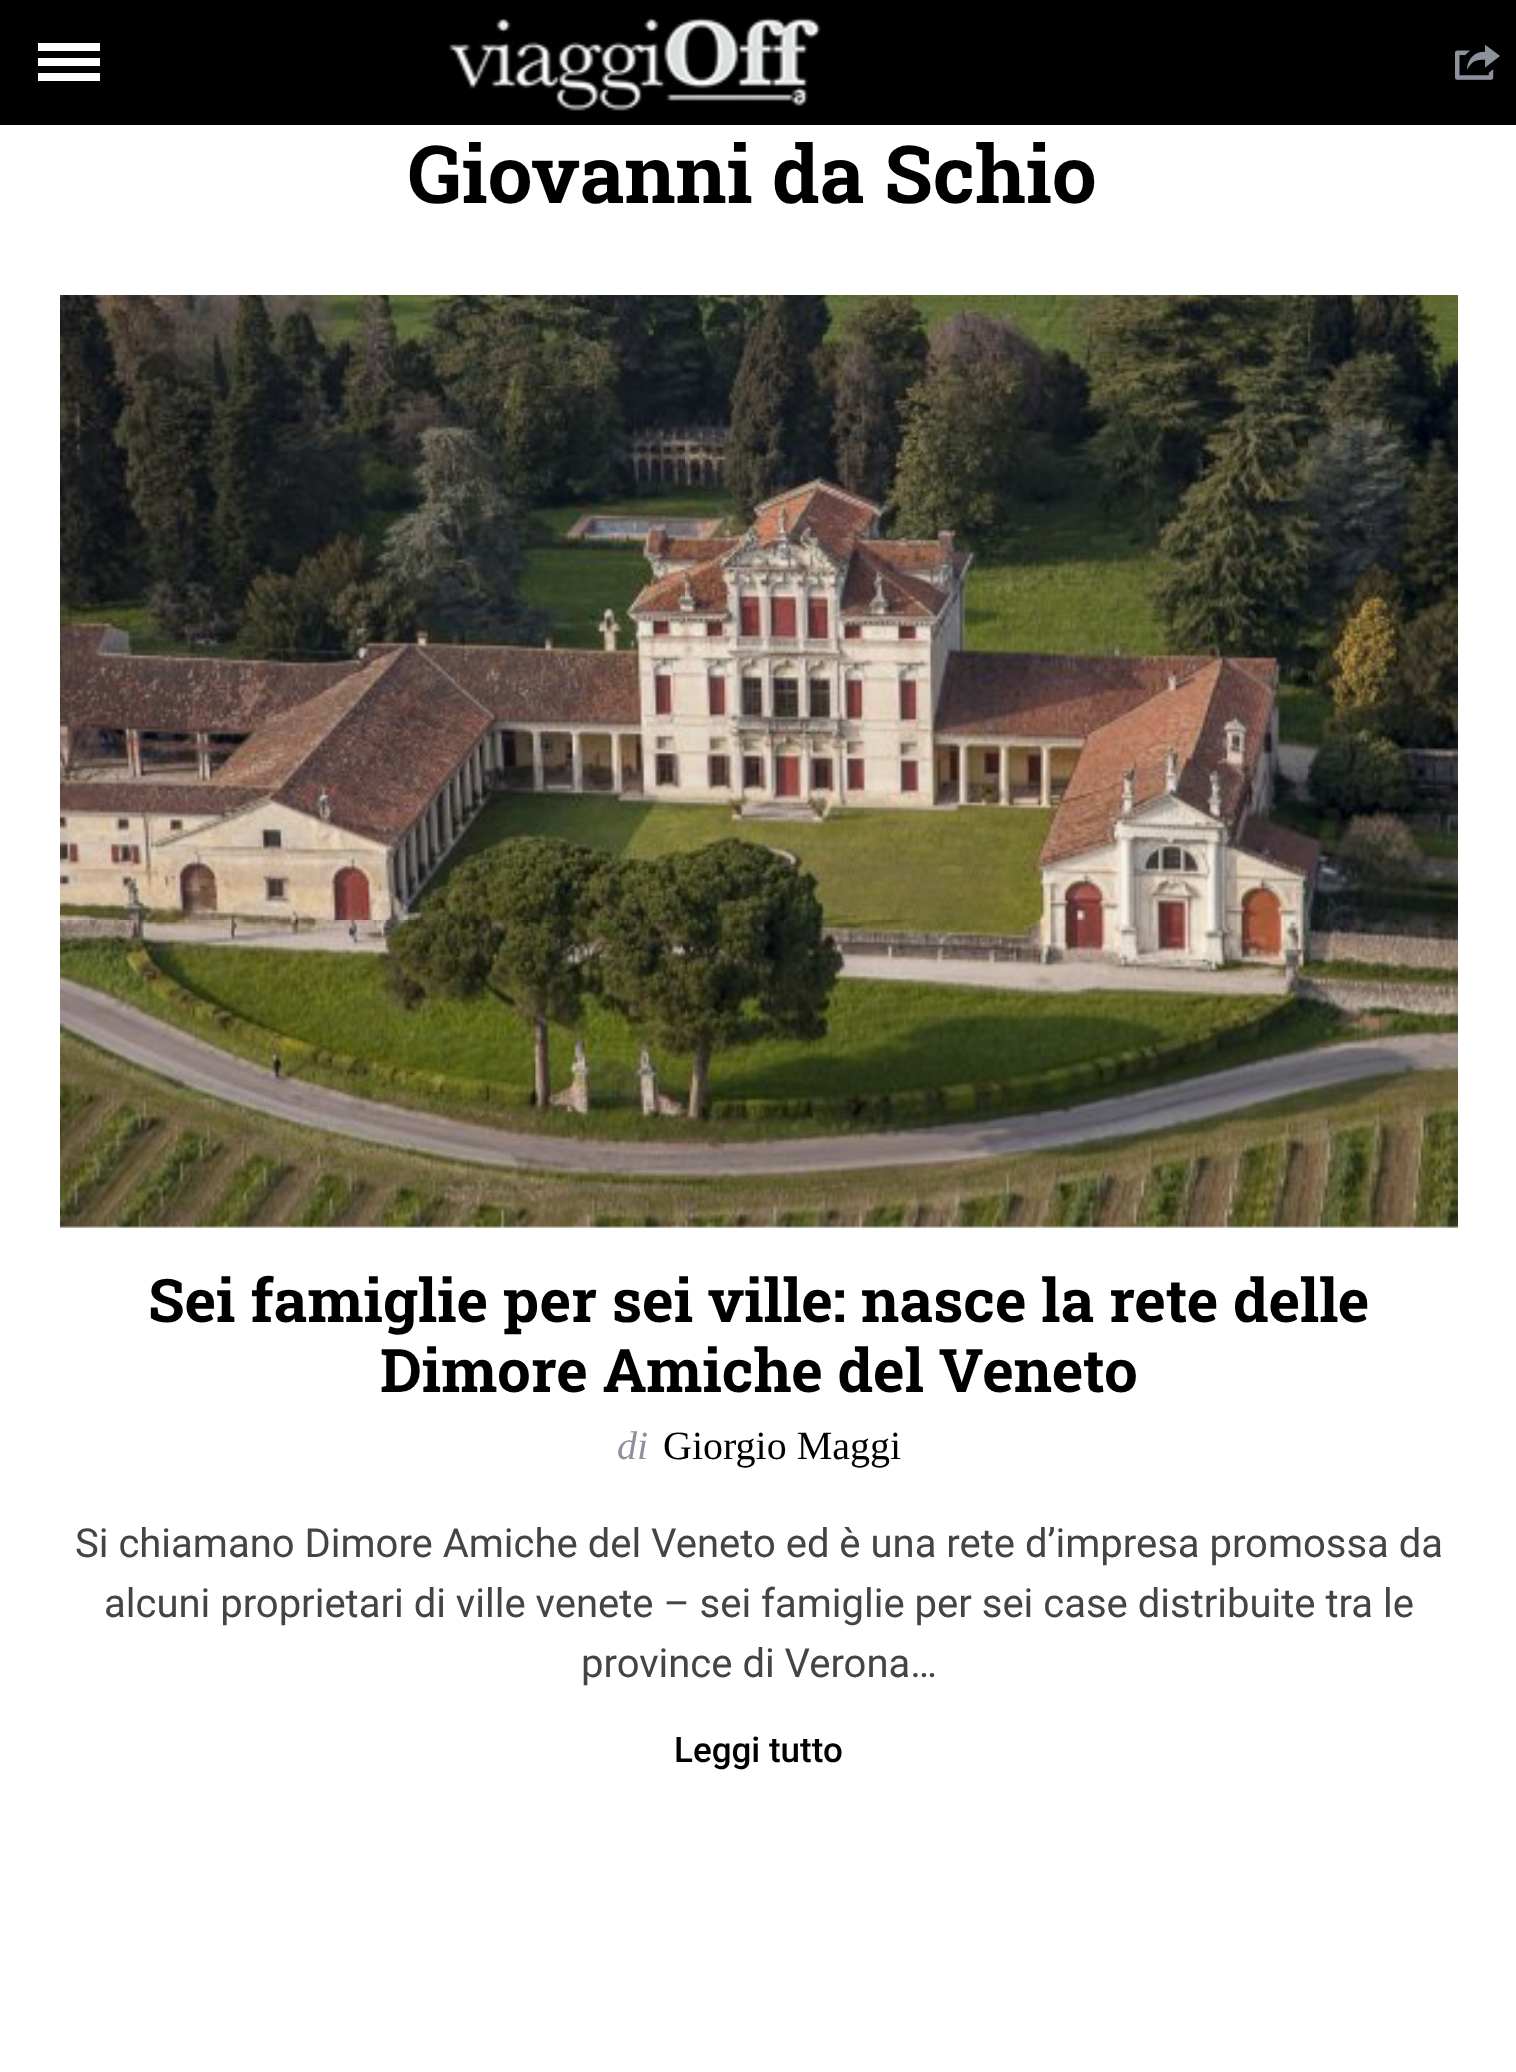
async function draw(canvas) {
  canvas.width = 1516;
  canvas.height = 2072;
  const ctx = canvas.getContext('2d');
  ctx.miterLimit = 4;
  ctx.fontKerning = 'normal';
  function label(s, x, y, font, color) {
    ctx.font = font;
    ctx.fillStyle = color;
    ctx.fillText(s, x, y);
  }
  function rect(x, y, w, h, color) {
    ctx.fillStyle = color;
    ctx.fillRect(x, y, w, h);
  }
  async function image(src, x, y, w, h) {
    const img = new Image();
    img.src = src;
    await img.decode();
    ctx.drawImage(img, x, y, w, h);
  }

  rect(0, 0, 1516, 2072, '#fff');
  rect(0, 0, 1516, 125, '#000');
  rect(38, 58, 62, 8, '#fff');
  rect(38, 43, 62, 8, '#fff');
  rect(38, 73, 62, 8, '#fff');
  await image('assets/img1.png', 443, 17, 379, 94);
  await image('assets/img2.png', 1455, 44, 45, 36);
  label('Giovanni da Schio', 408, 203, 'bold 80px Roboto Slab', '#000');
  await image('assets/img3.png', 60, 295, 1398, 933);
  label('Sei famiglie per sei ville: nasce la rete delle', 148, 1322, 'bold 60px Roboto Slab', '#000');
  label('Dimore Amiche del Veneto', 380, 1392, 'bold 60px Roboto Slab', '#000');
  label('di', 617, 1459, 'italic 40px Liberation Serif', '#8c919b');
  label('Giorgio Maggi', 663, 1459, '40px Liberation Serif', '#000');
  label('Si chiamano Dimore Amiche del Veneto ed è una rete d’impresa promossa da', 75, 1557, '40px Roboto', '#444');
  label('alcuni proprietari di ville venete – sei famiglie per sei case distribuite tra le', 104, 1617, '40px Roboto', '#444');
  label('province di Verona…', 581, 1677, '40px Roboto', '#444');
  label('Leggi tutto', 674, 1762, '500 35px Roboto', '#000');
}

draw(document.querySelector('canvas'));
